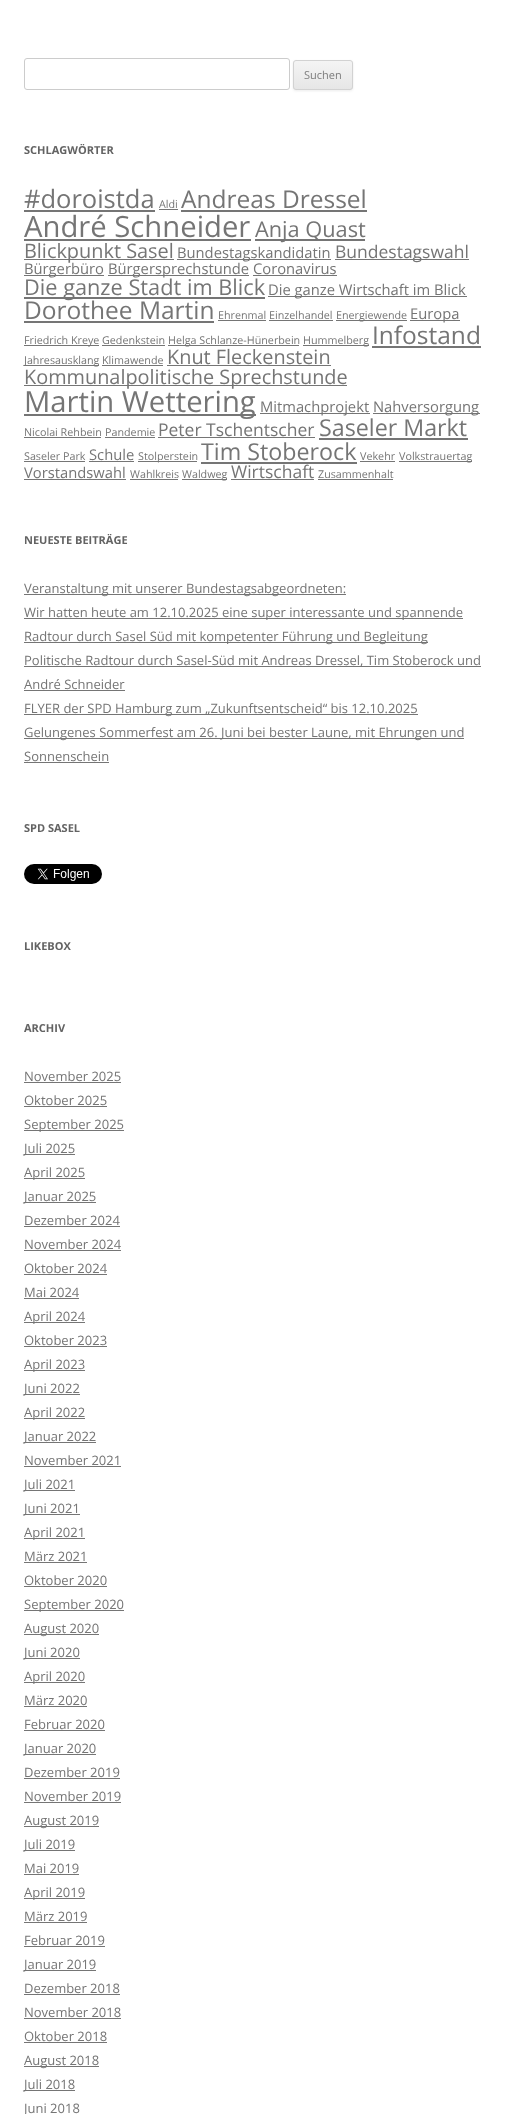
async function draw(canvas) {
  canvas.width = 517;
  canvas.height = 2114;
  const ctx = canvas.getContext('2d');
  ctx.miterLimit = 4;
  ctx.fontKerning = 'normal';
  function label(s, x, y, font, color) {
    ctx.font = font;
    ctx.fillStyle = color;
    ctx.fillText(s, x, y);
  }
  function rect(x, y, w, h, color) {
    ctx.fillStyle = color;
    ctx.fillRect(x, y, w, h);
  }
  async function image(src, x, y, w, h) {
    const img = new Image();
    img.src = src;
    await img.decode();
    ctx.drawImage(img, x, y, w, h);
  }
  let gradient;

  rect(0, 0, 517, 2114, '#fff');
  ctx.beginPath();
  ctx.roundRect(24.5, 58.5, 265, 31, 2.5);
  ctx.strokeStyle = '#ccc';
  ctx.stroke();
  ctx.fillStyle = '#4040401a';
  ctx.filter = 'blur(1px)';
  ctx.beginPath();
  ctx.roundRect(293, 61, 60, 30, 3);
  ctx.fill();
  ctx.filter = 'none';
  ctx.save();
  ctx.beginPath();
  ctx.roundRect(293, 60, 60, 30, 3);
  ctx.clip();
  gradient = ctx.createLinearGradient(323, 61, 323, 89);
  gradient.addColorStop(0, '#f4f4f4');
  gradient.addColorStop(1, '#e6e6e6');
  ctx.fillStyle = gradient;
  ctx.fillRect(293, 61, 60, 28);
  ctx.restore();
  ctx.beginPath();
  ctx.roundRect(293.5, 60.5, 59, 29, 2.5);
  ctx.strokeStyle = '#d2d2d2';
  ctx.stroke();
  label('Suchen', 304, 79, '11px Open Sans', '#7c7c7c');
  label('SCHLAGWÖRTER', 24, 154, 'bold 11px Open Sans', '#636363');
  label('#doroistda', 24, 208, '25.5px Open Sans', '#757575');
  rect(24, 210, 131, 2, '#757575');
  label('Aldi', 159, 208, '10.75px Open Sans', '#757575');
  rect(159, 209, 19, 1, '#757575');
  label('Andreas Dressel', 181, 208, '24.5px Open Sans', '#757575');
  rect(181, 210, 186, 2, '#757575');
  label('André Schneider', 24, 237, '29.25px Open Sans', '#757575');
  rect(24, 239, 227, 2, '#757575');
  rect(255, 239, 110, 2, '#757575');
  label('Anja Quast', 255, 237, '21.75px Open Sans', '#757575');
  rect(24, 259, 150, 1, '#757575');
  label('Blickpunkt Sasel', 24, 258, '19.9px Open Sans', '#757575');
  rect(177, 259, 154, 1, '#757575');
  label('Bundestagskandidatin', 177, 258, '14.75px Open Sans', '#757575');
  rect(335, 259, 134, 1, '#757575');
  label('Bundestagswahl', 335, 258, '17.5px Open Sans', '#757575');
  rect(24, 275, 80, 1, '#757575');
  label('Bürgerbüro', 24, 274, '14.75px Open Sans', '#757575');
  rect(108, 275, 141, 1, '#757575');
  label('Bürgersprechstunde', 108, 274, '14.75px Open Sans', '#757575');
  label('Coronavirus', 253, 274, '14.75px Open Sans', '#757575');
  rect(253, 275, 84, 1, '#757575');
  rect(24, 297, 241, 2, '#757575');
  label('Die ganze Stadt im Blick', 24, 295, '21.75px Open Sans', '#757575');
  rect(268, 296, 199, 1, '#757575');
  label('Die ganze Wirtschaft im Blick', 268, 295, '14.75px Open Sans', '#757575');
  label('Dorothee Martin', 24, 319, '24.5px Open Sans', '#757575');
  rect(24, 321, 190, 2, '#757575');
  label('Ehrenmal', 218, 319, '10.75px Open Sans', '#757575');
  rect(218, 320, 48, 1, '#757575');
  label('Einzelhandel', 269, 319, '10.75px Open Sans', '#757575');
  rect(269, 320, 64, 1, '#757575');
  rect(336, 320, 71, 1, '#757575');
  label('Energiewende', 336, 319, '10.75px Open Sans', '#757575');
  rect(410, 320, 50, 1, '#757575');
  label('Europa', 410, 319, '14.75px Open Sans', '#757575');
  rect(24, 345, 75, 1, '#757575');
  label('Friedrich Kreye', 24, 344, '10.75px Open Sans', '#757575');
  label('Gedenkstein', 102, 344, '10.75px Open Sans', '#757575');
  rect(102, 345, 63, 1, '#757575');
  rect(168, 345, 131, 1, '#757575');
  label('Helga Schlanze-Hünerbein', 168, 344, '10.75px Open Sans', '#757575');
  rect(303, 345, 66, 1, '#757575');
  label('Hummelberg', 303, 344, '10.75px Open Sans', '#757575');
  label('Infostand', 372, 344, '24.5px Open Sans', '#757575');
  rect(372, 346, 109, 2, '#757575');
  rect(24, 365, 75, 1, '#757575');
  label('Jahresausklang', 24, 364, '10.75px Open Sans', '#757575');
  label('Klimawende', 102, 364, '10.75px Open Sans', '#757575');
  rect(102, 365, 61, 1, '#757575');
  label('Knut Fleckenstein', 167, 364, '19.9px Open Sans', '#757575');
  rect(167, 365, 164, 1, '#757575');
  rect(24, 385, 323, 1, '#757575');
  label('Kommunalpolitische Sprechstunde', 24, 384, '19.9px Open Sans', '#757575');
  rect(24, 414, 232, 2, '#757575');
  label('Martin Wettering', 24, 412, '29.25px Open Sans', '#757575');
  rect(260, 413, 110, 1, '#757575');
  label('Mitmachprojekt', 260, 412, '14.75px Open Sans', '#757575');
  rect(373, 413, 107, 1, '#757575');
  label('Nahversorgung', 373, 412, '14.75px Open Sans', '#757575');
  label('Nicolai Rehbein', 24, 436, '10.75px Open Sans', '#757575');
  rect(24, 437, 77, 1, '#757575');
  label('Pandemie', 105, 436, '10.75px Open Sans', '#757575');
  rect(105, 437, 50, 1, '#757575');
  label('Peter Tschentscher', 158, 436, '17.5px Open Sans', '#757575');
  rect(158, 437, 157, 1, '#757575');
  label('Saseler Markt', 319, 436, '23.25px Open Sans', '#757575');
  rect(319, 438, 149, 2, '#757575');
  label('Saseler Park', 24, 460, '10.75px Open Sans', '#757575');
  rect(24, 461, 61, 1, '#757575');
  label('Schule', 89, 460, '14.75px Open Sans', '#757575');
  rect(89, 461, 45, 1, '#757575');
  rect(138, 461, 59, 1, '#757575');
  label('Stolperstein', 138, 460, '10.75px Open Sans', '#757575');
  label('Tim Stoberock', 201, 460, '23.25px Open Sans', '#757575');
  rect(201, 462, 156, 2, '#757575');
  label('Vekehr', 360, 460, '10.75px Open Sans', '#757575');
  rect(360, 461, 35, 1, '#757575');
  rect(399, 461, 73, 1, '#757575');
  label('Volkstrauertag', 399, 460, '10.75px Open Sans', '#757575');
  label('Vorstandswahl', 24, 478, '14.75px Open Sans', '#757575');
  rect(24, 479, 102, 1, '#757575');
  label('Wahlkreis', 130, 478, '10.75px Open Sans', '#757575');
  rect(130, 479, 48, 1, '#757575');
  rect(182, 479, 45, 1, '#757575');
  label('Waldweg', 182, 478, '10.75px Open Sans', '#757575');
  label('Wirtschaft', 231, 478, '17.5px Open Sans', '#757575');
  rect(231, 479, 83, 1, '#757575');
  label('Zusammenhalt', 318, 478, '10.75px Open Sans', '#757575');
  rect(318, 479, 75, 1, '#757575');
  label('NEUESTE BEITRÄGE', 24, 544, 'bold 11px Open Sans', '#636363');
  rect(24, 594, 322, 1, '#757575');
  label('Veranstaltung mit unserer Bundestagsabgeordneten:', 24, 593, '13px Open Sans', '#757575');
  rect(24, 618, 439, 1, '#757575');
  label('Wir hatten heute am 12.10.2025 eine super interessante und spannende', 24, 617, '13px Open Sans', '#757575');
  rect(24, 642, 404, 1, '#757575');
  label('Radtour durch Sasel Süd mit kompetenter Führung und Begleitung', 24, 641, '13px Open Sans', '#757575');
  rect(24, 666, 457, 1, '#757575');
  label('Politische Radtour durch Sasel-Süd mit Andreas Dressel, Tim Stoberock und', 24, 665, '13px Open Sans', '#757575');
  label('André Schneider', 24, 689, '13px Open Sans', '#757575');
  rect(24, 690, 101, 1, '#757575');
  rect(24, 714, 394, 1, '#757575');
  label('FLYER der SPD Hamburg zum „Zukunftsentscheid“ bis 12.10.2025', 24, 713, '13px Open Sans', '#757575');
  rect(24, 738, 440, 1, '#757575');
  label('Gelungenes Sommerfest am 26. Juni bei bester Laune, mit Ehrungen und', 24, 737, '13px Open Sans', '#757575');
  label('Sonnenschein', 24, 761, '13px Open Sans', '#757575');
  rect(24, 762, 85, 1, '#757575');
  label('SPD SASEL', 24, 832, 'bold 11px Open Sans', '#636363');
  await image('assets/img1.png', 24, 864, 78, 20);
  label('LIKEBOX', 24, 950, 'bold 11px Open Sans', '#636363');
  label('ARCHIV', 24, 1032, 'bold 11px Open Sans', '#636363');
  label('November 2025', 24, 1081, '13px Open Sans', '#757575');
  rect(24, 1082, 97, 1, '#757575');
  label('Oktober 2025', 24, 1105, '13px Open Sans', '#757575');
  rect(24, 1106, 83, 1, '#757575');
  rect(24, 1130, 100, 1, '#757575');
  label('September 2025', 24, 1129, '13px Open Sans', '#757575');
  rect(24, 1154, 51, 1, '#757575');
  label('Juli 2025', 24, 1153, '13px Open Sans', '#757575');
  rect(24, 1178, 61, 1, '#757575');
  label('April 2025', 24, 1177, '13px Open Sans', '#757575');
  rect(24, 1202, 72, 1, '#757575');
  label('Januar 2025', 24, 1201, '13px Open Sans', '#757575');
  label('Dezember 2024', 24, 1225, '13px Open Sans', '#757575');
  rect(24, 1226, 96, 1, '#757575');
  label('November 2024', 24, 1249, '13px Open Sans', '#757575');
  rect(24, 1250, 97, 1, '#757575');
  label('Oktober 2024', 24, 1273, '13px Open Sans', '#757575');
  rect(24, 1274, 83, 1, '#757575');
  label('Mai 2024', 24, 1297, '13px Open Sans', '#757575');
  rect(24, 1298, 55, 1, '#757575');
  rect(24, 1322, 61, 1, '#757575');
  label('April 2024', 24, 1321, '13px Open Sans', '#757575');
  label('Oktober 2023', 24, 1345, '13px Open Sans', '#757575');
  rect(24, 1346, 83, 1, '#757575');
  rect(24, 1370, 61, 1, '#757575');
  label('April 2023', 24, 1369, '13px Open Sans', '#757575');
  rect(24, 1394, 56, 1, '#757575');
  label('Juni 2022', 24, 1393, '13px Open Sans', '#757575');
  rect(24, 1418, 61, 1, '#757575');
  label('April 2022', 24, 1417, '13px Open Sans', '#757575');
  rect(24, 1442, 72, 1, '#757575');
  label('Januar 2022', 24, 1441, '13px Open Sans', '#757575');
  label('November 2021', 24, 1465, '13px Open Sans', '#757575');
  rect(24, 1466, 97, 1, '#757575');
  rect(24, 1490, 51, 1, '#757575');
  label('Juli 2021', 24, 1489, '13px Open Sans', '#757575');
  rect(24, 1514, 56, 1, '#757575');
  label('Juni 2021', 24, 1513, '13px Open Sans', '#757575');
  rect(24, 1538, 61, 1, '#757575');
  label('April 2021', 24, 1537, '13px Open Sans', '#757575');
  label('März 2021', 24, 1561, '13px Open Sans', '#757575');
  rect(24, 1562, 63, 1, '#757575');
  label('Oktober 2020', 24, 1585, '13px Open Sans', '#757575');
  rect(24, 1586, 83, 1, '#757575');
  rect(24, 1610, 100, 1, '#757575');
  label('September 2020', 24, 1609, '13px Open Sans', '#757575');
  rect(24, 1634, 75, 1, '#757575');
  label('August 2020', 24, 1633, '13px Open Sans', '#757575');
  rect(24, 1658, 56, 1, '#757575');
  label('Juni 2020', 24, 1657, '13px Open Sans', '#757575');
  rect(24, 1682, 61, 1, '#757575');
  label('April 2020', 24, 1681, '13px Open Sans', '#757575');
  label('März 2020', 24, 1705, '13px Open Sans', '#757575');
  rect(24, 1706, 63, 1, '#757575');
  label('Februar 2020', 24, 1729, '13px Open Sans', '#757575');
  rect(24, 1730, 81, 1, '#757575');
  rect(24, 1754, 72, 1, '#757575');
  label('Januar 2020', 24, 1753, '13px Open Sans', '#757575');
  label('Dezember 2019', 24, 1777, '13px Open Sans', '#757575');
  rect(24, 1778, 96, 1, '#757575');
  label('November 2019', 24, 1801, '13px Open Sans', '#757575');
  rect(24, 1802, 97, 1, '#757575');
  rect(24, 1826, 75, 1, '#757575');
  label('August 2019', 24, 1825, '13px Open Sans', '#757575');
  rect(24, 1850, 51, 1, '#757575');
  label('Juli 2019', 24, 1849, '13px Open Sans', '#757575');
  label('Mai 2019', 24, 1873, '13px Open Sans', '#757575');
  rect(24, 1874, 55, 1, '#757575');
  rect(24, 1898, 61, 1, '#757575');
  label('April 2019', 24, 1897, '13px Open Sans', '#757575');
  label('März 2019', 24, 1921, '13px Open Sans', '#757575');
  rect(24, 1922, 63, 1, '#757575');
  label('Februar 2019', 24, 1945, '13px Open Sans', '#757575');
  rect(24, 1946, 81, 1, '#757575');
  rect(24, 1970, 72, 1, '#757575');
  label('Januar 2019', 24, 1969, '13px Open Sans', '#757575');
  label('Dezember 2018', 24, 1993, '13px Open Sans', '#757575');
  rect(24, 1994, 96, 1, '#757575');
  label('November 2018', 24, 2017, '13px Open Sans', '#757575');
  rect(24, 2018, 97, 1, '#757575');
  label('Oktober 2018', 24, 2041, '13px Open Sans', '#757575');
  rect(24, 2042, 83, 1, '#757575');
  rect(24, 2066, 75, 1, '#757575');
  label('August 2018', 24, 2065, '13px Open Sans', '#757575');
  rect(24, 2090, 51, 1, '#757575');
  label('Juli 2018', 24, 2089, '13px Open Sans', '#757575');
  label('Juni 2018', 24, 2113, '13px Open Sans', '#757575');
}

draw(document.querySelector('canvas'));
